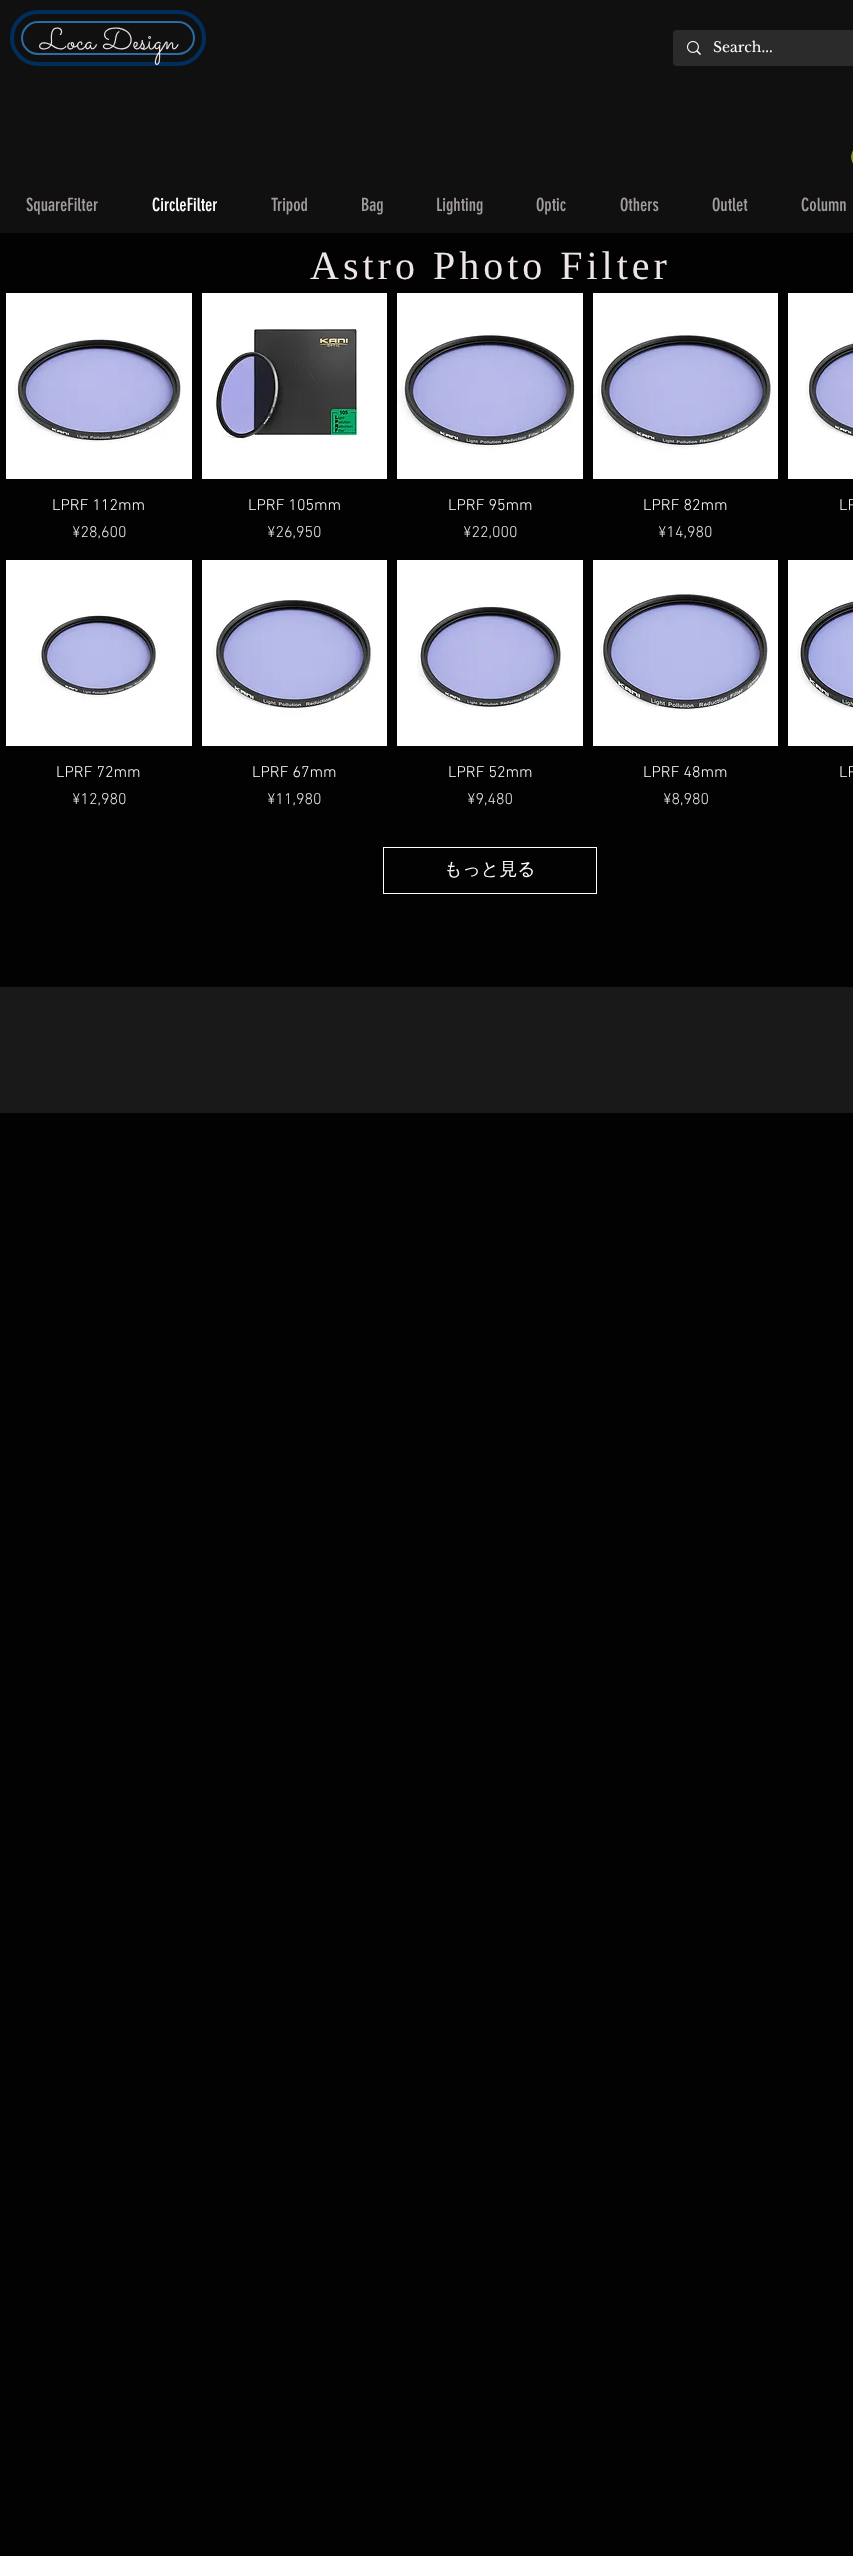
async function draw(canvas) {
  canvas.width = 853;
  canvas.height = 2556;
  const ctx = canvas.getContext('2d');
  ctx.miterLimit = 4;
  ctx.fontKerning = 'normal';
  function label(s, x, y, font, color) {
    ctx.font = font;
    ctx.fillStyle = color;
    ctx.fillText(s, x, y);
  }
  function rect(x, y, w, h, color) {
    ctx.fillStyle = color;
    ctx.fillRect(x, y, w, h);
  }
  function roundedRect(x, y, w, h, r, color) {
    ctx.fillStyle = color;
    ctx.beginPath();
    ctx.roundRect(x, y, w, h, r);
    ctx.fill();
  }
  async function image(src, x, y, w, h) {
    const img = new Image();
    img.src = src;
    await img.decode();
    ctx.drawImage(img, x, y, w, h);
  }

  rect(0, 0, 853, 2556, '#020202');
  rect(0, 0, 853, 233, '#101010');
  ctx.beginPath();
  ctx.roundRect(12, 12, 192, 52, 26);
  ctx.strokeStyle = '#002e5d';
  ctx.lineWidth = 4;
  ctx.stroke();
  ctx.beginPath();
  ctx.roundRect(22, 22, 172, 32, 16);
  ctx.strokeStyle = '#2b6ca3';
  ctx.lineWidth = 2;
  ctx.stroke();
  label('Loca Design', 40, 49, '30px Sacramento', '#eee6e6');
  roundedRect(673, 30, 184, 36, 4, '#2b2b2b');
  await image('assets/img1.png', 687, 41, 14, 14);
  label('Search...', 713, 52, '14px Libre Baskerville', '#fff');
  await image('assets/img2.png', 851, 150, 2, 14);
  label('SquareFilter', 26, 211, '18px "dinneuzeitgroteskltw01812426"', '#a29c9c');
  label('CircleFilter', 152, 211, '18px "dinneuzeitgroteskltw01812426"', '#fff');
  label('Tripod', 271, 211, '18px "dinneuzeitgroteskltw01812426"', '#a29c9c');
  label('Bag', 361, 211, '18px "dinneuzeitgroteskltw01812426"', '#a29c9c');
  label('Lighting', 436, 211, '18px "dinneuzeitgroteskltw01812426"', '#a29c9c');
  label('Optic', 536, 211, '18px "dinneuzeitgroteskltw01812426"', '#a29c9c');
  label('Others', 620, 211, '18px "dinneuzeitgroteskltw01812426"', '#a29c9c');
  label('Outlet', 712, 211, '18px "dinneuzeitgroteskltw01812426"', '#a29c9c');
  label('Column', 801, 211, '18px "dinneuzeitgroteskltw01812426"', '#a29c9c');
  ctx.letterSpacing = '4px';
  label('Astro Photo Filter', 310, 279, '40px Liberation Serif', '#eee6e6');
  await image('assets/img3.png', 6, 293, 186, 186);
  ctx.letterSpacing = '0px';
  label('LPRF 112mm', 52, 510, '300 16px "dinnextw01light"', '#fff');
  label('¥28,600', 72, 537, '300 16px "dinnextw01light"', '#eee6e6');
  await image('assets/img4.png', 202, 293, 185, 186);
  label('LPRF 105mm', 248, 510, '300 16px "dinnextw01light"', '#fff');
  label('¥26,950', 267, 537, '300 16px "dinnextw01light"', '#eee6e6');
  await image('assets/img5.png', 397, 293, 186, 186);
  label('LPRF 95mm', 448, 510, '300 16px "dinnextw01light"', '#fff');
  label('¥22,000', 463, 537, '300 16px "dinnextw01light"', '#eee6e6');
  await image('assets/img6.png', 593, 293, 185, 186);
  label('LPRF 82mm', 643, 510, '300 16px "dinnextw01light"', '#fff');
  label('¥14,980', 658, 537, '300 16px "dinnextw01light"', '#eee6e6');
  await image('assets/img7.png', 788, 293, 65, 186);
  label('LP', 839, 510, '300 16px "dinnextw01light"', '#fff');
  await image('assets/img8.png', 6, 560, 186, 186);
  label('LPRF 72mm', 56, 777, '300 16px "dinnextw01light"', '#fff');
  label('¥12,980', 72, 804, '300 16px "dinnextw01light"', '#eee6e6');
  await image('assets/img9.png', 202, 560, 185, 186);
  label('LPRF 67mm', 252, 777, '300 16px "dinnextw01light"', '#fff');
  label('¥11,980', 267, 804, '300 16px "dinnextw01light"', '#eee6e6');
  await image('assets/img10.png', 397, 560, 186, 186);
  label('LPRF 52mm', 448, 777, '300 16px "dinnextw01light"', '#fff');
  label('¥9,480', 467, 804, '300 16px "dinnextw01light"', '#eee6e6');
  await image('assets/img11.png', 593, 560, 185, 186);
  label('LPRF 48mm', 643, 777, '300 16px "dinnextw01light"', '#fff');
  label('¥8,980', 663, 804, '300 16px "dinnextw01light"', '#eee6e6');
  await image('assets/img12.png', 788, 560, 65, 186);
  label('LP', 839, 777, '300 16px "dinnextw01light"', '#fff');
  ctx.strokeStyle = '#fff';
  ctx.lineWidth = 1;
  ctx.strokeRect(383.5, 847.5, 213, 46);
  label('もっと見る', 444, 875, '500 18px WenQuanYi Zen Hei', '#fff');
  rect(0, 987, 853, 126, '#1a1919');
}

draw(document.querySelector('canvas'));
